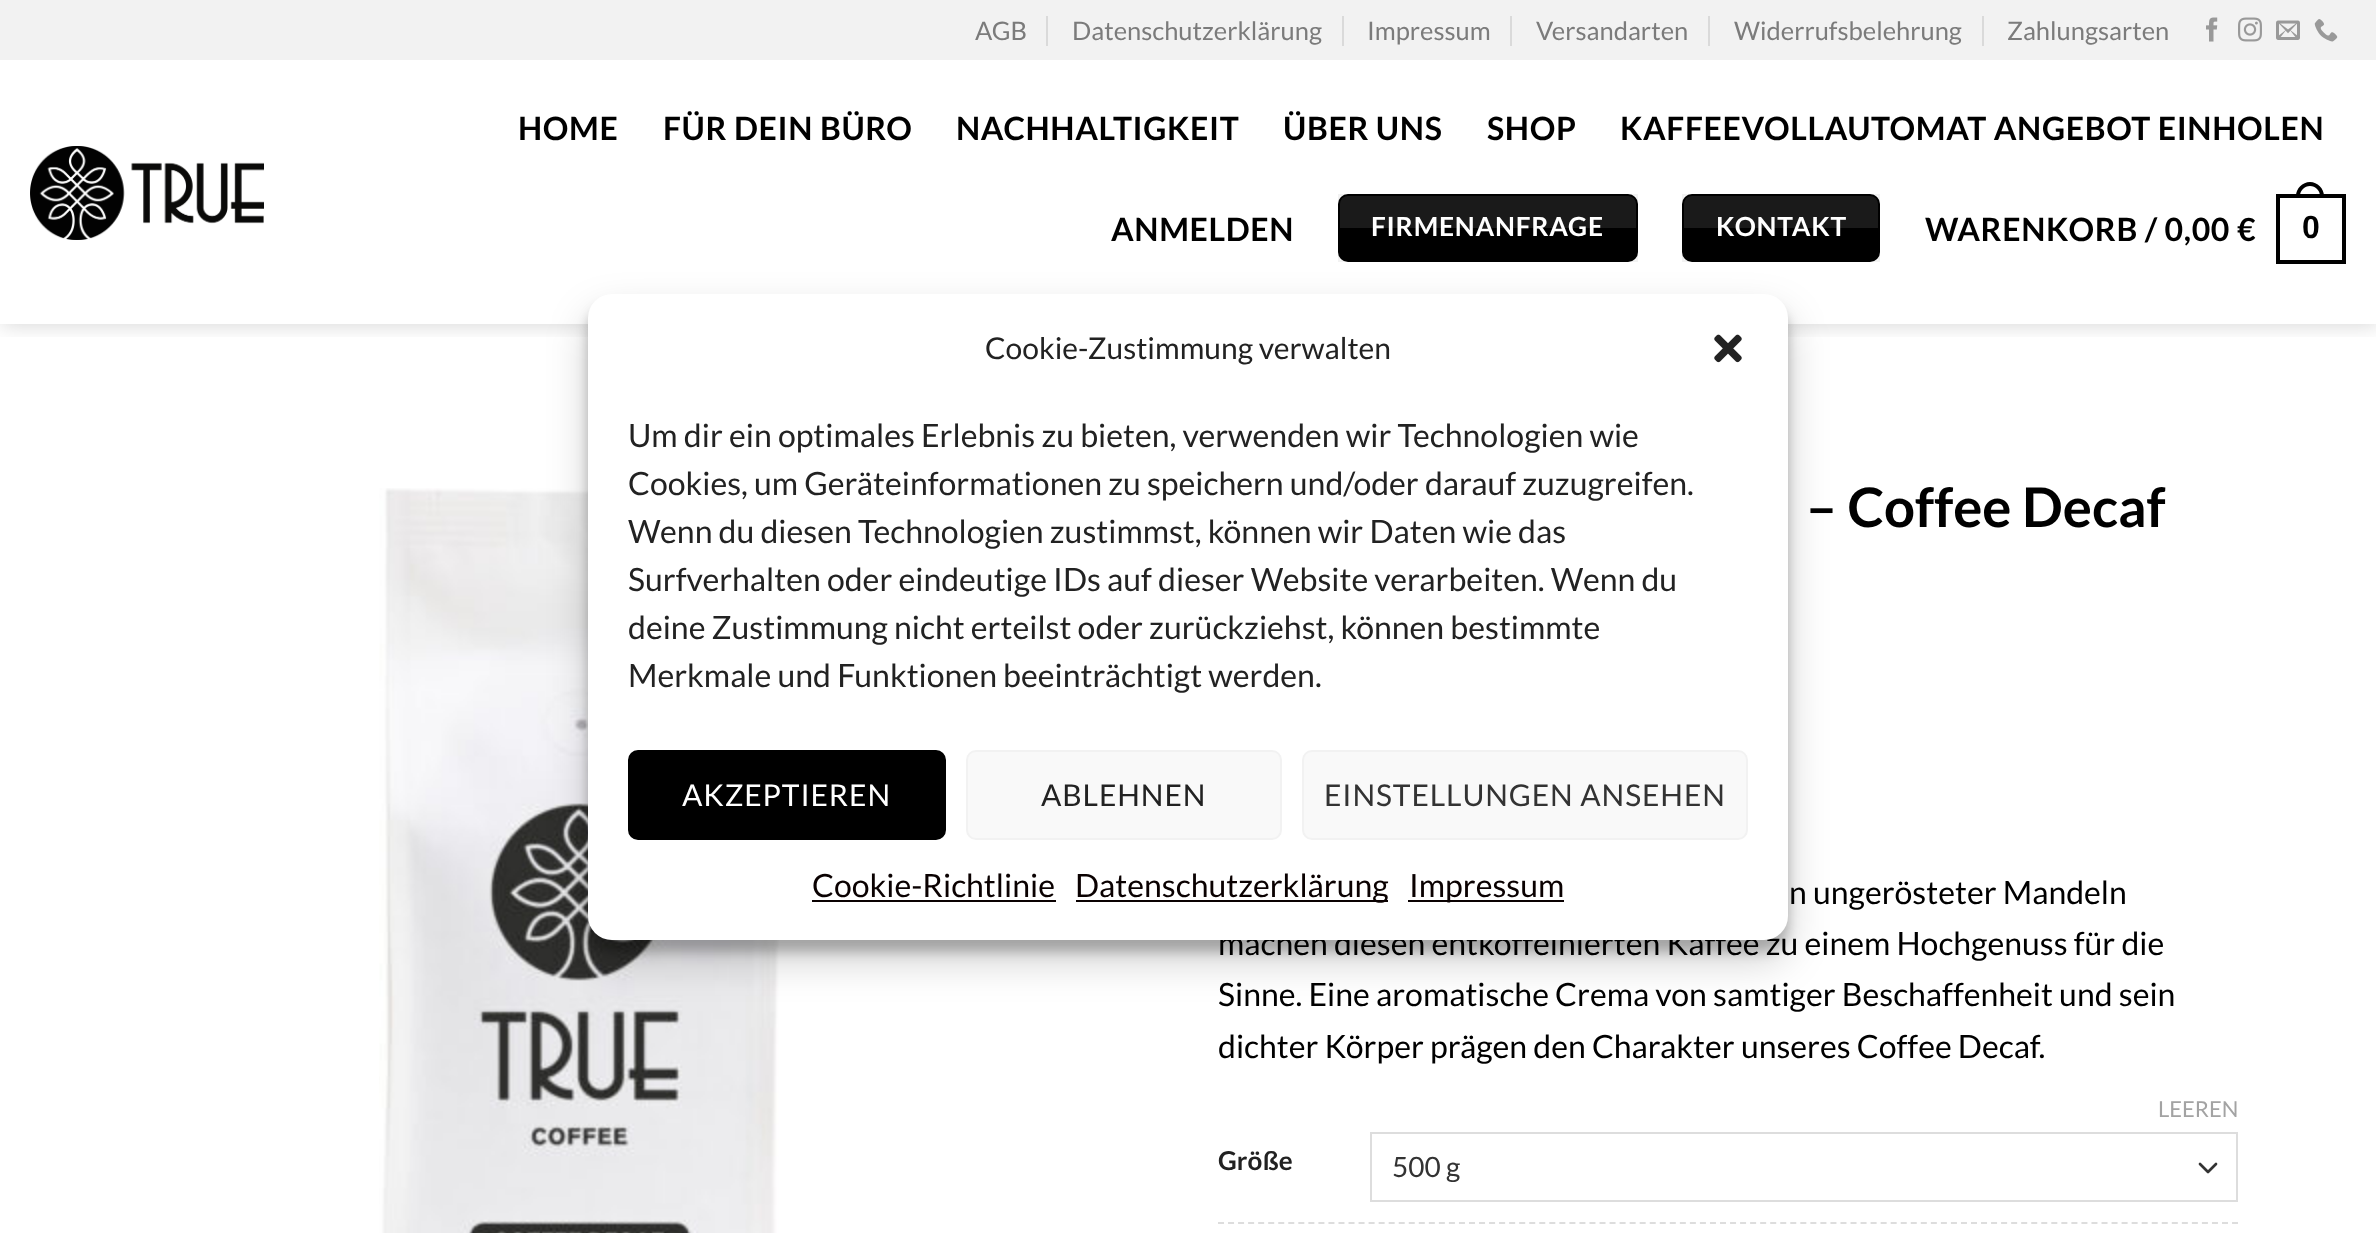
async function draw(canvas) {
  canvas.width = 2376;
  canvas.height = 1233;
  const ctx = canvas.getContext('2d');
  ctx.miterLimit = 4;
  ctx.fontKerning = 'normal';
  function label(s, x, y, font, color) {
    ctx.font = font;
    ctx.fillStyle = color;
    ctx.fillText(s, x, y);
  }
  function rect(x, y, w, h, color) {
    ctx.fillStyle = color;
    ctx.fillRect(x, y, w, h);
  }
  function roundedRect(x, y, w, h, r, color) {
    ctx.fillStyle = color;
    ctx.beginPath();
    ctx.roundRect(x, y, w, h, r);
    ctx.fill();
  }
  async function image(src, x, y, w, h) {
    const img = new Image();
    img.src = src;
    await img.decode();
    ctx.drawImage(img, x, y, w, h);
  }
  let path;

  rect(0, 0, 2376, 1233, '#fff');
  ctx.save();
  ctx.beginPath();
  ctx.rect(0, 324, 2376, 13);
  ctx.clip();
  ctx.fillStyle = '#00000026';
  ctx.filter = 'blur(10px)';
  ctx.beginPath();
  ctx.rect(2, 2, 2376, 324);
  ctx.fill();
  ctx.filter = 'none';
  ctx.restore();
  rect(0, 0, 2376, 60, '#f2f2f2');
  label('AGB', 975, 40, '25.5px Lato', '#7b7b7b');
  rect(1046, 16, 2, 30, '#dadada');
  label('Datenschutzerklärung', 1072, 40, '25.5px Lato', '#7b7b7b');
  rect(1342, 16, 2, 30, '#dadada');
  label('Impressum', 1367, 40, '25.5px Lato', '#7b7b7b');
  rect(1510, 16, 2, 30, '#dadada');
  label('Versandarten', 1536, 40, '25.5px Lato', '#7b7b7b');
  rect(1708, 16, 2, 30, '#dadada');
  label('Widerrufsbelehrung', 1734, 40, '25.5px Lato', '#7b7b7b');
  rect(1982, 16, 2, 30, '#dadada');
  label('Zahlungsarten', 2007, 40, '25.5px Lato', '#7b7b7b');
  await image('assets/img1.png', 2206, 17, 12, 25);
  await image('assets/img2.png', 2238, 17, 24, 25);
  await image('assets/img3.png', 2276, 20, 24, 20);
  await image('assets/img4.png', 2314, 19, 24, 23);
  await image('assets/img5.png', 30, 146, 234, 94);
  ctx.letterSpacing = '0.65px';
  label('HOME', 518, 140, 'bold 32px Lato', '#000');
  label('FÜR DEIN BÜRO', 663, 140, 'bold 32px Lato', '#000');
  label('NACHHALTIGKEIT', 956, 140, 'bold 32px Lato', '#000');
  label('ÜBER UNS', 1283, 140, 'bold 32px Lato', '#000');
  label('SHOP', 1487, 140, 'bold 32px Lato', '#000');
  label('KAFFEEVOLLAUTOMAT ANGEBOT EINHOLEN', 1620, 140, 'bold 32px Lato', '#000');
  label('ANMELDEN', 1111, 241, 'bold 32px Lato', '#000');
  roundedRect(1338, 194, 300, 68, 10, '#000');
  ctx.strokeStyle = '#0000000d';
  ctx.lineWidth = 2;
  ctx.strokeRect(1339, 195, 298, 66);
  ctx.fillStyle = '#ffffff1a';
  ctx.beginPath();
  ctx.roundRect(1340, 196, 296, 32, [8, 8, 0, 0]);
  ctx.fill();
  ctx.letterSpacing = '0.75px';
  label('FIRMENANFRAGE', 1371, 236, 'bold 26.4px Lato', '#fff');
  roundedRect(1682, 194, 198, 68, 10, '#000');
  ctx.strokeRect(1683, 195, 196, 66);
  ctx.fillStyle = '#ffffff1a';
  ctx.beginPath();
  ctx.roundRect(1684, 196, 194, 32, [8, 8, 0, 0]);
  ctx.fill();
  label('KONTAKT', 1716, 236, 'bold 26.4px Lato', '#fff');
  ctx.letterSpacing = '0.65px';
  label('WARENKORB / 0,00 €', 1925, 241, 'bold 32px Lato', '#000');
  ctx.strokeStyle = '#000';
  ctx.lineWidth = 4;
  ctx.strokeRect(2278, 196, 66, 66);
  path = new Path2D('M2310 182C2317.5 182 2324 188.5 2324 196V198H2296V196C2296 188.5 2302.5 182 2310 182ZM2310 186C2315.5 186 2320 190.5 2320 196V198H2300V196C2300 190.5 2304.5 186 2310 186Z');
  ctx.fill(path, 'evenodd');
  label('0', 2302, 238, 'bold 32px Liberation Sans', '#000');
  await image('assets/img6.png', 379, 488, 719, 745);
  ctx.letterSpacing = '0px';
  label('– Coffee Decaf', 1806, 527, 'bold 54.5px Lato', '#000');
  label('n ungerösteter Mandeln', 1789, 904, '32px Lato', '#000');
  label('machen diesen entkoffeinierten Kaffee zu einem Hochgenuss für die', 1218, 955, '32px Lato', '#000');
  label('Sinne. Eine aromatische Crema von samtiger Beschaffenheit und sein', 1218, 1006, '32px Lato', '#000');
  label('dichter Körper prägen den Charakter unseres Coffee Decaf.', 1218, 1058, '32px Lato', '#000');
  path = new Path2D('M1218 1223H2238');
  ctx.strokeStyle = '#ddd';
  ctx.lineWidth = 2;
  ctx.setLineDash([6, 4.04]);
  ctx.stroke(path);
  label('LEEREN', 2158, 1117, '22px Lato', '#a3a3a3');
  label('Größe', 1218, 1170, 'bold 26px Lato', '#222');
  path = new Path2D('M2200 1164L2208 1172L2216 1164');
  ctx.strokeStyle = '#333';
  ctx.lineWidth = 2.7;
  ctx.lineCap = 'round';
  ctx.lineJoin = 'round';
  ctx.setLineDash([]);
  ctx.stroke(path);
  ctx.strokeStyle = '#ddd';
  ctx.lineWidth = 2;
  ctx.lineJoin = 'miter';
  ctx.strokeRect(1371, 1133, 866, 68);
  label('500 g', 1392, 1177, '28px Lato', '#333');
  ctx.fillStyle = '#0000003b';
  ctx.filter = 'blur(6px)';
  ctx.beginPath();
  ctx.roundRect(588, 306, 1200, 646, 24);
  ctx.fill();
  ctx.filter = 'none';
  ctx.fillStyle = '#00000030';
  ctx.filter = 'blur(20px)';
  ctx.beginPath();
  ctx.roundRect(588, 314, 1200, 646, 24);
  ctx.fill();
  ctx.filter = 'none';
  roundedRect(588, 294, 1200, 646, 24, '#fff');
  label('Cookie-Zustimmung verwalten', 985, 359, '30px Lato', '#222');
  await image('assets/img7.png', 1714, 334, 28, 29);
  label('Um dir ein optimales Erlebnis zu bieten, verwenden wir Technologien wie', 628, 447, '32px Lato', '#222');
  label('Cookies, um Geräteinformationen zu speichern und/oder darauf zuzugreifen.', 628, 495, '32px Lato', '#222');
  label('Wenn du diesen Technologien zustimmst, können wir Daten wie das', 628, 543, '32px Lato', '#222');
  label('Surfverhalten oder eindeutige IDs auf dieser Website verarbeiten. Wenn du', 628, 591, '32px Lato', '#222');
  label('deine Zustimmung nicht erteilst oder zurückziehst, können bestimmte', 628, 639, '32px Lato', '#222');
  label('Merkmale und Funktionen beeinträchtigt werden.', 628, 687, '32px Lato', '#222');
  ctx.fillStyle = '#000';
  ctx.beginPath();
  ctx.roundRect(629, 751, 316, 88, 9);
  ctx.fill();
  ctx.strokeStyle = '#000';
  ctx.stroke();
  ctx.letterSpacing = '0.9px';
  label('AKZEPTIEREN', 682, 806, '30px Lato', '#fff');
  ctx.fillStyle = '#f9f9f9';
  ctx.beginPath();
  ctx.roundRect(967, 751, 314, 88, 9);
  ctx.fill();
  ctx.strokeStyle = '#f2f2f2';
  ctx.stroke();
  label('ABLEHNEN', 1041, 806, '30px Lato', '#222');
  ctx.fillStyle = '#f9f9f9';
  ctx.beginPath();
  ctx.roundRect(1303, 751, 444, 88, 9);
  ctx.fill();
  ctx.stroke();
  label('EINSTELLUNGEN ANSEHEN', 1324, 806, '30px Lato', '#333');
  ctx.letterSpacing = '0px';
  label('Cookie-Richtlinie', 812, 897, '32px Lato', '#0a0101');
  rect(812, 900, 244, 2, '#0a0101');
  rect(1076, 900, 312, 2, '#0a0101');
  label('Datenschutzerklärung', 1075, 897, '32px Lato', '#0a0101');
  rect(1408, 900, 156, 2, '#0a0101');
  label('Impressum', 1409, 897, '32px Lato', '#0a0101');
}

draw(document.querySelector('canvas'));
